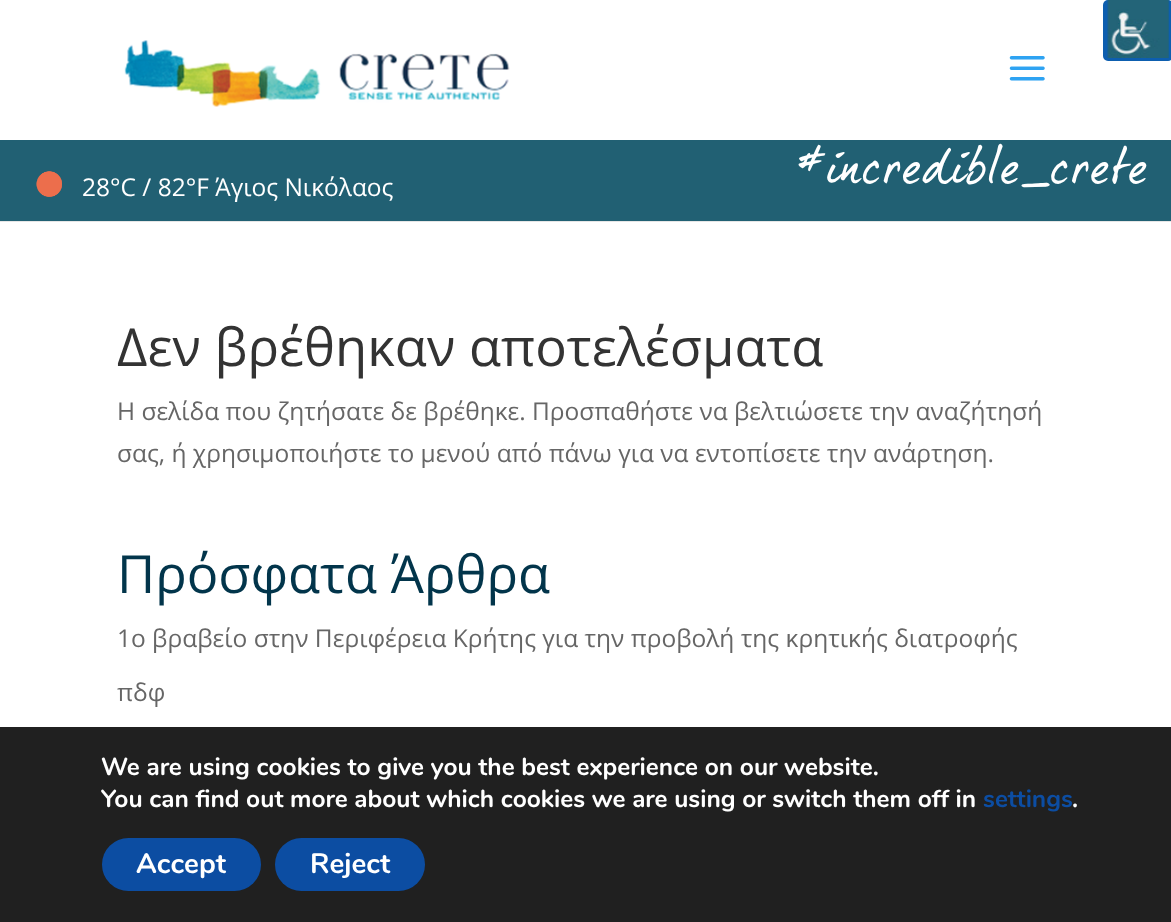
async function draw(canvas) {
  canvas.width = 1171;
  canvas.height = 922;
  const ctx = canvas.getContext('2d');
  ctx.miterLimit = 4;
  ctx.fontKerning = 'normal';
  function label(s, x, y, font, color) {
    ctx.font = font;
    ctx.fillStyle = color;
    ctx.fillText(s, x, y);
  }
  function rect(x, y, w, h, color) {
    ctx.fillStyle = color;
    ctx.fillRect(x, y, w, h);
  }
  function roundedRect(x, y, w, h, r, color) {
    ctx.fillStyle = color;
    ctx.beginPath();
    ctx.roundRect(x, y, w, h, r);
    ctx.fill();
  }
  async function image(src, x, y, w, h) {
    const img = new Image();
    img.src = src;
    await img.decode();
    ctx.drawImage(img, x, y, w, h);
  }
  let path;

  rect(0, 0, 1171, 922, '#fff');
  roundedRect(1103, 0, 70, 61, 5, '#0d5eaf');
  await image('assets/img1.png', 1107, 0, 62, 58);
  ctx.fillStyle = '#e6e6e6';
  path = new Path2D('M0 220V222H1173V2H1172V220Z');
  ctx.fill(path);
  await image('assets/img2.png', 124, 40, 386, 67);
  await image('assets/img3.png', 1009, 56, 36, 25);
  rect(0, 140, 1171, 81, '#216073');
  await image('assets/img4.png', 36, 171, 26, 26);
  label('28°C / 82°F Άγιος Νικόλαος', 82, 196, '24.5px Open Sans', '#fff');
  label('#incredible_crete', 795, 182, '52.5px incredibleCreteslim', '#fff');
  label('Δεν βρέθηκαν αποτελέσματα', 117, 366, '52.5px Open Sans', '#333');
  label('Η σελίδα που ζητήσατε δε βρέθηκε. Προσπαθήστε να βελτιώσετε την αναζήτησή', 117, 420, '24.5px Open Sans', '#666');
  label('σας, ή χρησιμοποιήστε το μενού από πάνω για να εντοπίσετε την ανάρτηση.', 117, 462, '24.5px Open Sans', '#666');
  label('Πρόσφατα Άρθρα', 117, 593, '52.5px Open Sans', '#02354b');
  label('1ο βραβείο στην Περιφέρεια Κρήτης για την προβολή της κρητικής διατροφής', 117, 647, '24.5px Open Sans', '#666');
  label('πδφ', 117, 701, '24.5px Open Sans', '#666');
  rect(0, 727, 1171, 195, '#202020');
  label('We are using cookies to give you the best experience on our website.', 101, 775, 'bold 24.5px Nunito', '#fff');
  label('You can find out more about which cookies we are using or switch them off in', 101, 807, 'bold 24.5px Nunito', '#fff');
  label('settings', 983, 807, 'bold 24.5px Nunito', '#0c4da2');
  label('.', 1072, 807, 'bold 24.5px Nunito', '#fff');
  roundedRect(102, 838, 159, 53, 26.5, '#0c4da2');
  label('Accept', 136, 873, 'bold 28px Nunito', '#fff');
  roundedRect(275, 838, 150, 53, 26.5, '#0c4da2');
  label('Reject', 310, 873, 'bold 28px Nunito', '#fff');
}

draw(document.querySelector('canvas'));
